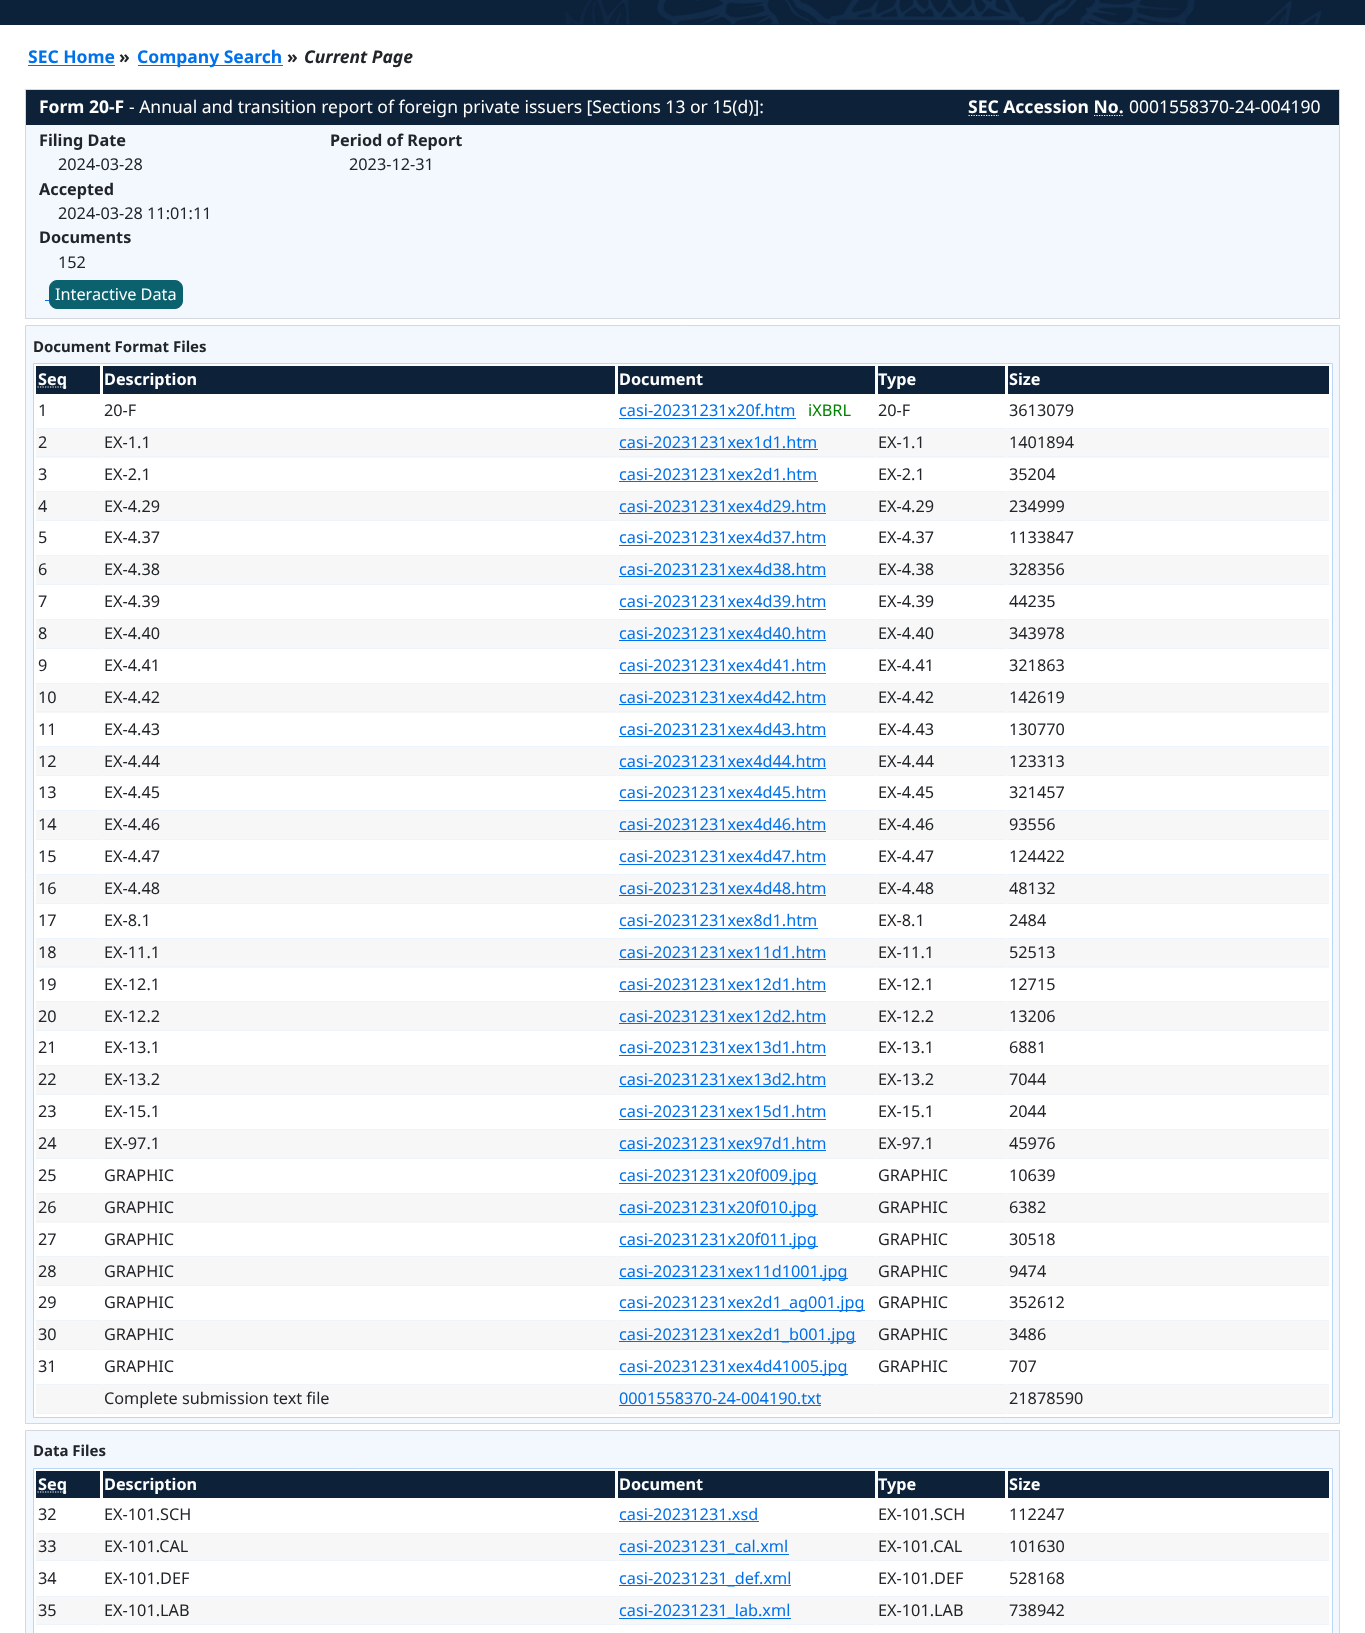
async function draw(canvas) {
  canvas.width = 1365;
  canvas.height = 1633;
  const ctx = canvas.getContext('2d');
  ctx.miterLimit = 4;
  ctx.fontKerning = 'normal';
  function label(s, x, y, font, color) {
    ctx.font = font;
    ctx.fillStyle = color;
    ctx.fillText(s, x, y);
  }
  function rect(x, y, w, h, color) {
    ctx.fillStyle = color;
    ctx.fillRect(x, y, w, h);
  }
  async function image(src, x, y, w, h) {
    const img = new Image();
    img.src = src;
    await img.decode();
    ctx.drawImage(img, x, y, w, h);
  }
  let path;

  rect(0, 0, 1365, 1633, '#fff');
  rect(0, 0, 1365, 25, '#0c213a');
  await image('assets/img1.png', 565, 0, 757, 25);
  label('SEC Home', 28, 63, 'bold 17.5px Noto Sans', '#0071eb');
  rect(28, 65, 87, 1, '#0071eb');
  label('»', 119, 63, 'bold 17.5px Noto Sans', '#212529');
  rect(138, 65, 145, 1, '#0071eb');
  label('Company Search', 137, 63, 'bold 17.5px Noto Sans', '#0071eb');
  label('»', 287, 63, 'bold 17.5px Noto Sans', '#212529');
  label('Current Page', 304, 63, 'italic bold 17.5px Noto Sans', '#212529');
  rect(26, 125, 1313, 193, '#f3f8ff');
  ctx.strokeStyle = '#d5d9df';
  ctx.strokeRect(25.5, 89.5, 1314, 229);
  rect(26, 90, 1313, 35, '#0d2239');
  label('Form 20-F', 39, 113, 'bold 17.5px Noto Sans', '#fff');
  label('- Annual and transition report of foreign private issuers [Sections 13 or 15(d)]:', 129, 113, '17.5px Noto Sans', '#fff');
  label('SEC Accession No.', 968, 113, 'bold 17.5px Noto Sans', '#fff');
  path = new Path2D('M968.5 115.5H999');
  ctx.strokeStyle = '#fff';
  ctx.lineWidth = 1.2;
  ctx.setLineDash([1.25, 1.25]);
  ctx.stroke(path);
  path = new Path2D('M1094 115.5H1124');
  ctx.stroke(path);
  label('0001558370-24-004190', 1129, 113, '17.5px Noto Sans', '#fff');
  label('Filing Date', 39, 146, 'bold 16.25px Noto Sans', '#212529');
  label('2024-03-28', 58, 170, '16.25px Noto Sans', '#212529');
  label('Accepted', 39, 195, 'bold 16.25px Noto Sans', '#212529');
  label('2024-03-28 11:01:11', 58, 219, '16.25px Noto Sans', '#212529');
  label('Documents', 39, 243, 'bold 16.25px Noto Sans', '#212529');
  label('152', 58, 268, '16.25px Noto Sans', '#212529');
  label('Period of Report', 330, 146, 'bold 16.25px Noto Sans', '#212529');
  label('2023-12-31', 349, 170, '16.25px Noto Sans', '#212529');
  rect(45, 300, 4, 1, '#0071eb');
  ctx.fillStyle = '#0c616e';
  ctx.beginPath();
  ctx.roundRect(49.5, 280.5, 133, 28, 7.5);
  ctx.fill();
  ctx.strokeStyle = '#0c616e';
  ctx.lineWidth = 1;
  ctx.setLineDash([]);
  ctx.stroke();
  label('Interactive Data', 55, 300, '16.25px Noto Sans', '#fff');
  ctx.fillStyle = '#f3f8ff';
  ctx.beginPath();
  ctx.rect(25.5, 325.5, 1314, 1098);
  ctx.fill();
  ctx.strokeStyle = '#d5d9df';
  ctx.stroke();
  label('Document Format Files', 33, 352, 'bold 15px Noto Sans', '#212529');
  ctx.fillStyle = '#fff';
  ctx.beginPath();
  ctx.rect(33.5, 363.5, 1299, 1054);
  ctx.fill();
  ctx.strokeStyle = '#bcd6f8';
  ctx.stroke();
  rect(36, 366, 64, 28, '#0d2239');
  path = new Path2D('M37.5 387H66.5');
  ctx.strokeStyle = '#fff';
  ctx.lineWidth = 1.2;
  ctx.setLineDash([1.25, 1.25]);
  ctx.stroke(path);
  label('Seq', 38, 385, 'bold 16.25px Noto Sans', '#fff');
  rect(103, 366, 512, 28, '#0d2239');
  label('Description', 104, 385, 'bold 16.25px Noto Sans', '#fff');
  rect(618, 366, 257, 28, '#0d2239');
  label('Document', 619, 385, 'bold 16.25px Noto Sans', '#fff');
  rect(878, 366, 127, 28, '#0d2239');
  label('Type', 878, 385, 'bold 16.25px Noto Sans', '#fff');
  rect(1008, 366, 321, 28, '#0d2239');
  label('Size', 1009, 385, 'bold 16.25px Noto Sans', '#fff');
  label('1', 38, 416, '16.25px Noto Sans', '#212529');
  label('20-F', 104, 416, '16.25px Noto Sans', '#212529');
  label('casi-20231231x20f.htm', 619, 416, '16.25px Noto Sans', '#0071eb');
  rect(619, 418, 177, 1, '#0071eb');
  label('iXBRL', 808, 416, '16.25px Noto Sans', '#008000');
  label('20-F', 878, 416, '16.25px Noto Sans', '#212529');
  label('3613079', 1009, 416, '16.25px Noto Sans', '#212529');
  rect(36, 428, 1293, 30, '#f7f7f7');
  rect(36, 428, 64, 1, '#eef4fd');
  rect(36, 456, 64, 1, '#eef4fd');
  label('2', 38, 448, '16.25px Noto Sans', '#212529');
  rect(103, 428, 512, 1, '#eef4fd');
  rect(103, 456, 512, 1, '#eef4fd');
  label('EX-1.1', 104, 448, '16.25px Noto Sans', '#212529');
  rect(618, 428, 257, 1, '#eef4fd');
  rect(618, 456, 257, 1, '#eef4fd');
  label('casi-20231231xex1d1.htm', 619, 448, '16.25px Noto Sans', '#0071eb');
  rect(619, 449, 199, 1, '#0071eb');
  rect(878, 428, 127, 1, '#eef4fd');
  rect(878, 456, 127, 1, '#eef4fd');
  label('EX-1.1', 878, 448, '16.25px Noto Sans', '#212529');
  rect(1008, 428, 321, 1, '#eef4fd');
  rect(1008, 456, 321, 1, '#eef4fd');
  label('1401894', 1009, 448, '16.25px Noto Sans', '#212529');
  label('3', 38, 480, '16.25px Noto Sans', '#212529');
  label('EX-2.1', 104, 480, '16.25px Noto Sans', '#212529');
  label('casi-20231231xex2d1.htm', 619, 480, '16.25px Noto Sans', '#0071eb');
  rect(619, 481, 199, 1, '#0071eb');
  label('EX-2.1', 878, 480, '16.25px Noto Sans', '#212529');
  label('35204', 1009, 480, '16.25px Noto Sans', '#212529');
  rect(36, 491, 1293, 30, '#f7f7f7');
  rect(36, 491, 64, 1, '#eef4fd');
  rect(36, 520, 64, 1, '#eef4fd');
  label('4', 38, 512, '16.25px Noto Sans', '#212529');
  rect(103, 491, 512, 1, '#eef4fd');
  rect(103, 520, 512, 1, '#eef4fd');
  label('EX-4.29', 104, 512, '16.25px Noto Sans', '#212529');
  rect(618, 491, 257, 1, '#eef4fd');
  rect(618, 520, 257, 1, '#eef4fd');
  label('casi-20231231xex4d29.htm', 619, 512, '16.25px Noto Sans', '#0071eb');
  rect(619, 513, 207, 1, '#0071eb');
  rect(878, 491, 127, 1, '#eef4fd');
  rect(878, 520, 127, 1, '#eef4fd');
  label('EX-4.29', 878, 512, '16.25px Noto Sans', '#212529');
  rect(1008, 491, 321, 1, '#eef4fd');
  rect(1008, 520, 321, 1, '#eef4fd');
  label('234999', 1009, 512, '16.25px Noto Sans', '#212529');
  label('5', 38, 543, '16.25px Noto Sans', '#212529');
  label('EX-4.37', 104, 543, '16.25px Noto Sans', '#212529');
  label('casi-20231231xex4d37.htm', 619, 543, '16.25px Noto Sans', '#0071eb');
  rect(619, 545, 207, 1, '#0071eb');
  label('EX-4.37', 878, 543, '16.25px Noto Sans', '#212529');
  label('1133847', 1009, 543, '16.25px Noto Sans', '#212529');
  rect(36, 555, 1293, 30, '#f7f7f7');
  rect(36, 555, 64, 1, '#eef4fd');
  rect(36, 584, 64, 1, '#eef4fd');
  label('6', 38, 575, '16.25px Noto Sans', '#212529');
  rect(103, 555, 512, 1, '#eef4fd');
  rect(103, 584, 512, 1, '#eef4fd');
  label('EX-4.38', 104, 575, '16.25px Noto Sans', '#212529');
  rect(618, 555, 257, 1, '#eef4fd');
  rect(618, 584, 257, 1, '#eef4fd');
  label('casi-20231231xex4d38.htm', 619, 575, '16.25px Noto Sans', '#0071eb');
  rect(619, 576, 207, 1, '#0071eb');
  rect(878, 555, 127, 1, '#eef4fd');
  rect(878, 584, 127, 1, '#eef4fd');
  label('EX-4.38', 878, 575, '16.25px Noto Sans', '#212529');
  rect(1008, 555, 321, 1, '#eef4fd');
  rect(1008, 584, 321, 1, '#eef4fd');
  label('328356', 1009, 575, '16.25px Noto Sans', '#212529');
  label('7', 38, 607, '16.25px Noto Sans', '#212529');
  label('EX-4.39', 104, 607, '16.25px Noto Sans', '#212529');
  label('casi-20231231xex4d39.htm', 619, 607, '16.25px Noto Sans', '#0071eb');
  rect(619, 609, 207, 1, '#0071eb');
  label('EX-4.39', 878, 607, '16.25px Noto Sans', '#212529');
  label('44235', 1009, 607, '16.25px Noto Sans', '#212529');
  rect(36, 619, 1293, 30, '#f7f7f7');
  rect(36, 619, 64, 1, '#eef4fd');
  rect(36, 648, 64, 1, '#eef4fd');
  label('8', 38, 639, '16.25px Noto Sans', '#212529');
  rect(103, 619, 512, 1, '#eef4fd');
  rect(103, 648, 512, 1, '#eef4fd');
  label('EX-4.40', 104, 639, '16.25px Noto Sans', '#212529');
  rect(618, 619, 257, 1, '#eef4fd');
  rect(618, 648, 257, 1, '#eef4fd');
  label('casi-20231231xex4d40.htm', 619, 639, '16.25px Noto Sans', '#0071eb');
  rect(619, 640, 207, 1, '#0071eb');
  rect(878, 619, 127, 1, '#eef4fd');
  rect(878, 648, 127, 1, '#eef4fd');
  label('EX-4.40', 878, 639, '16.25px Noto Sans', '#212529');
  rect(1008, 619, 321, 1, '#eef4fd');
  rect(1008, 648, 321, 1, '#eef4fd');
  label('343978', 1009, 639, '16.25px Noto Sans', '#212529');
  label('9', 38, 671, '16.25px Noto Sans', '#212529');
  label('EX-4.41', 104, 671, '16.25px Noto Sans', '#212529');
  label('casi-20231231xex4d41.htm', 619, 671, '16.25px Noto Sans', '#0071eb');
  rect(619, 673, 207, 1, '#0071eb');
  label('EX-4.41', 878, 671, '16.25px Noto Sans', '#212529');
  label('321863', 1009, 671, '16.25px Noto Sans', '#212529');
  rect(36, 683, 1293, 30, '#f7f7f7');
  rect(36, 683, 64, 1, '#eef4fd');
  rect(36, 711, 64, 1, '#eef4fd');
  label('10', 38, 703, '16.25px Noto Sans', '#212529');
  rect(103, 683, 512, 1, '#eef4fd');
  rect(103, 711, 512, 1, '#eef4fd');
  label('EX-4.42', 104, 703, '16.25px Noto Sans', '#212529');
  rect(618, 683, 257, 1, '#eef4fd');
  rect(618, 711, 257, 1, '#eef4fd');
  label('casi-20231231xex4d42.htm', 619, 703, '16.25px Noto Sans', '#0071eb');
  rect(619, 704, 207, 1, '#0071eb');
  rect(878, 683, 127, 1, '#eef4fd');
  rect(878, 711, 127, 1, '#eef4fd');
  label('EX-4.42', 878, 703, '16.25px Noto Sans', '#212529');
  rect(1008, 683, 321, 1, '#eef4fd');
  rect(1008, 711, 321, 1, '#eef4fd');
  label('142619', 1009, 703, '16.25px Noto Sans', '#212529');
  label('11', 38, 735, '16.25px Noto Sans', '#212529');
  label('EX-4.43', 104, 735, '16.25px Noto Sans', '#212529');
  label('casi-20231231xex4d43.htm', 619, 735, '16.25px Noto Sans', '#0071eb');
  rect(619, 736, 207, 1, '#0071eb');
  label('EX-4.43', 878, 735, '16.25px Noto Sans', '#212529');
  label('130770', 1009, 735, '16.25px Noto Sans', '#212529');
  rect(36, 746, 1293, 30, '#f7f7f7');
  rect(36, 746, 64, 1, '#eef4fd');
  rect(36, 775, 64, 1, '#eef4fd');
  label('12', 38, 767, '16.25px Noto Sans', '#212529');
  rect(103, 746, 512, 1, '#eef4fd');
  rect(103, 775, 512, 1, '#eef4fd');
  label('EX-4.44', 104, 767, '16.25px Noto Sans', '#212529');
  rect(618, 746, 257, 1, '#eef4fd');
  rect(618, 775, 257, 1, '#eef4fd');
  label('casi-20231231xex4d44.htm', 619, 767, '16.25px Noto Sans', '#0071eb');
  rect(619, 768, 207, 1, '#0071eb');
  rect(878, 746, 127, 1, '#eef4fd');
  rect(878, 775, 127, 1, '#eef4fd');
  label('EX-4.44', 878, 767, '16.25px Noto Sans', '#212529');
  rect(1008, 746, 321, 1, '#eef4fd');
  rect(1008, 775, 321, 1, '#eef4fd');
  label('123313', 1009, 767, '16.25px Noto Sans', '#212529');
  label('13', 38, 798, '16.25px Noto Sans', '#212529');
  label('EX-4.45', 104, 798, '16.25px Noto Sans', '#212529');
  label('casi-20231231xex4d45.htm', 619, 798, '16.25px Noto Sans', '#0071eb');
  rect(619, 800, 207, 1, '#0071eb');
  label('EX-4.45', 878, 798, '16.25px Noto Sans', '#212529');
  label('321457', 1009, 798, '16.25px Noto Sans', '#212529');
  rect(36, 810, 1293, 30, '#f7f7f7');
  rect(36, 810, 64, 1, '#eef4fd');
  rect(36, 839, 64, 1, '#eef4fd');
  label('14', 38, 830, '16.25px Noto Sans', '#212529');
  rect(103, 810, 512, 1, '#eef4fd');
  rect(103, 839, 512, 1, '#eef4fd');
  label('EX-4.46', 104, 830, '16.25px Noto Sans', '#212529');
  rect(618, 810, 257, 1, '#eef4fd');
  rect(618, 839, 257, 1, '#eef4fd');
  label('casi-20231231xex4d46.htm', 619, 830, '16.25px Noto Sans', '#0071eb');
  rect(619, 831, 207, 1, '#0071eb');
  rect(878, 810, 127, 1, '#eef4fd');
  rect(878, 839, 127, 1, '#eef4fd');
  label('EX-4.46', 878, 830, '16.25px Noto Sans', '#212529');
  rect(1008, 810, 321, 1, '#eef4fd');
  rect(1008, 839, 321, 1, '#eef4fd');
  label('93556', 1009, 830, '16.25px Noto Sans', '#212529');
  label('15', 38, 862, '16.25px Noto Sans', '#212529');
  label('EX-4.47', 104, 862, '16.25px Noto Sans', '#212529');
  label('casi-20231231xex4d47.htm', 619, 862, '16.25px Noto Sans', '#0071eb');
  rect(619, 864, 207, 1, '#0071eb');
  label('EX-4.47', 878, 862, '16.25px Noto Sans', '#212529');
  label('124422', 1009, 862, '16.25px Noto Sans', '#212529');
  rect(36, 874, 1293, 30, '#f7f7f7');
  rect(36, 874, 64, 1, '#eef4fd');
  rect(36, 903, 64, 1, '#eef4fd');
  label('16', 38, 894, '16.25px Noto Sans', '#212529');
  rect(103, 874, 512, 1, '#eef4fd');
  rect(103, 903, 512, 1, '#eef4fd');
  label('EX-4.48', 104, 894, '16.25px Noto Sans', '#212529');
  rect(618, 874, 257, 1, '#eef4fd');
  rect(618, 903, 257, 1, '#eef4fd');
  label('casi-20231231xex4d48.htm', 619, 894, '16.25px Noto Sans', '#0071eb');
  rect(619, 895, 207, 1, '#0071eb');
  rect(878, 874, 127, 1, '#eef4fd');
  rect(878, 903, 127, 1, '#eef4fd');
  label('EX-4.48', 878, 894, '16.25px Noto Sans', '#212529');
  rect(1008, 874, 321, 1, '#eef4fd');
  rect(1008, 903, 321, 1, '#eef4fd');
  label('48132', 1009, 894, '16.25px Noto Sans', '#212529');
  label('17', 38, 926, '16.25px Noto Sans', '#212529');
  label('EX-8.1', 104, 926, '16.25px Noto Sans', '#212529');
  label('casi-20231231xex8d1.htm', 619, 926, '16.25px Noto Sans', '#0071eb');
  rect(619, 928, 199, 1, '#0071eb');
  label('EX-8.1', 878, 926, '16.25px Noto Sans', '#212529');
  label('2484', 1009, 926, '16.25px Noto Sans', '#212529');
  rect(36, 938, 1293, 30, '#f7f7f7');
  rect(36, 938, 64, 1, '#eef4fd');
  rect(36, 966, 64, 1, '#eef4fd');
  label('18', 38, 958, '16.25px Noto Sans', '#212529');
  rect(103, 938, 512, 1, '#eef4fd');
  rect(103, 966, 512, 1, '#eef4fd');
  label('EX-11.1', 104, 958, '16.25px Noto Sans', '#212529');
  rect(618, 938, 257, 1, '#eef4fd');
  rect(618, 966, 257, 1, '#eef4fd');
  label('casi-20231231xex11d1.htm', 619, 958, '16.25px Noto Sans', '#0071eb');
  rect(619, 959, 207, 1, '#0071eb');
  rect(878, 938, 127, 1, '#eef4fd');
  rect(878, 966, 127, 1, '#eef4fd');
  label('EX-11.1', 878, 958, '16.25px Noto Sans', '#212529');
  rect(1008, 938, 321, 1, '#eef4fd');
  rect(1008, 966, 321, 1, '#eef4fd');
  label('52513', 1009, 958, '16.25px Noto Sans', '#212529');
  label('19', 38, 990, '16.25px Noto Sans', '#212529');
  label('EX-12.1', 104, 990, '16.25px Noto Sans', '#212529');
  label('casi-20231231xex12d1.htm', 619, 990, '16.25px Noto Sans', '#0071eb');
  rect(619, 991, 207, 1, '#0071eb');
  label('EX-12.1', 878, 990, '16.25px Noto Sans', '#212529');
  label('12715', 1009, 990, '16.25px Noto Sans', '#212529');
  rect(36, 1001, 1293, 30, '#f7f7f7');
  rect(36, 1001, 64, 1, '#eef4fd');
  rect(36, 1030, 64, 1, '#eef4fd');
  label('20', 38, 1022, '16.25px Noto Sans', '#212529');
  rect(103, 1001, 512, 1, '#eef4fd');
  rect(103, 1030, 512, 1, '#eef4fd');
  label('EX-12.2', 104, 1022, '16.25px Noto Sans', '#212529');
  rect(618, 1001, 257, 1, '#eef4fd');
  rect(618, 1030, 257, 1, '#eef4fd');
  label('casi-20231231xex12d2.htm', 619, 1022, '16.25px Noto Sans', '#0071eb');
  rect(619, 1023, 207, 1, '#0071eb');
  rect(878, 1001, 127, 1, '#eef4fd');
  rect(878, 1030, 127, 1, '#eef4fd');
  label('EX-12.2', 878, 1022, '16.25px Noto Sans', '#212529');
  rect(1008, 1001, 321, 1, '#eef4fd');
  rect(1008, 1030, 321, 1, '#eef4fd');
  label('13206', 1009, 1022, '16.25px Noto Sans', '#212529');
  label('21', 38, 1053, '16.25px Noto Sans', '#212529');
  label('EX-13.1', 104, 1053, '16.25px Noto Sans', '#212529');
  label('casi-20231231xex13d1.htm', 619, 1053, '16.25px Noto Sans', '#0071eb');
  rect(619, 1055, 207, 1, '#0071eb');
  label('EX-13.1', 878, 1053, '16.25px Noto Sans', '#212529');
  label('6881', 1009, 1053, '16.25px Noto Sans', '#212529');
  rect(36, 1065, 1293, 30, '#f7f7f7');
  rect(36, 1065, 64, 1, '#eef4fd');
  rect(36, 1094, 64, 1, '#eef4fd');
  label('22', 38, 1085, '16.25px Noto Sans', '#212529');
  rect(103, 1065, 512, 1, '#eef4fd');
  rect(103, 1094, 512, 1, '#eef4fd');
  label('EX-13.2', 104, 1085, '16.25px Noto Sans', '#212529');
  rect(618, 1065, 257, 1, '#eef4fd');
  rect(618, 1094, 257, 1, '#eef4fd');
  label('casi-20231231xex13d2.htm', 619, 1085, '16.25px Noto Sans', '#0071eb');
  rect(619, 1086, 207, 1, '#0071eb');
  rect(878, 1065, 127, 1, '#eef4fd');
  rect(878, 1094, 127, 1, '#eef4fd');
  label('EX-13.2', 878, 1085, '16.25px Noto Sans', '#212529');
  rect(1008, 1065, 321, 1, '#eef4fd');
  rect(1008, 1094, 321, 1, '#eef4fd');
  label('7044', 1009, 1085, '16.25px Noto Sans', '#212529');
  label('23', 38, 1117, '16.25px Noto Sans', '#212529');
  label('EX-15.1', 104, 1117, '16.25px Noto Sans', '#212529');
  label('casi-20231231xex15d1.htm', 619, 1117, '16.25px Noto Sans', '#0071eb');
  rect(619, 1119, 207, 1, '#0071eb');
  label('EX-15.1', 878, 1117, '16.25px Noto Sans', '#212529');
  label('2044', 1009, 1117, '16.25px Noto Sans', '#212529');
  rect(36, 1129, 1293, 30, '#f7f7f7');
  rect(36, 1129, 64, 1, '#eef4fd');
  rect(36, 1158, 64, 1, '#eef4fd');
  label('24', 38, 1149, '16.25px Noto Sans', '#212529');
  rect(103, 1129, 512, 1, '#eef4fd');
  rect(103, 1158, 512, 1, '#eef4fd');
  label('EX-97.1', 104, 1149, '16.25px Noto Sans', '#212529');
  rect(618, 1129, 257, 1, '#eef4fd');
  rect(618, 1158, 257, 1, '#eef4fd');
  label('casi-20231231xex97d1.htm', 619, 1149, '16.25px Noto Sans', '#0071eb');
  rect(619, 1150, 207, 1, '#0071eb');
  rect(878, 1129, 127, 1, '#eef4fd');
  rect(878, 1158, 127, 1, '#eef4fd');
  label('EX-97.1', 878, 1149, '16.25px Noto Sans', '#212529');
  rect(1008, 1129, 321, 1, '#eef4fd');
  rect(1008, 1158, 321, 1, '#eef4fd');
  label('45976', 1009, 1149, '16.25px Noto Sans', '#212529');
  label('25', 38, 1181, '16.25px Noto Sans', '#212529');
  label('GRAPHIC', 104, 1181, '16.25px Noto Sans', '#212529');
  rect(619, 1183, 199, 1, '#0071eb');
  label('casi-20231231x20f009.jpg', 619, 1181, '16.25px Noto Sans', '#0071eb');
  label('GRAPHIC', 878, 1181, '16.25px Noto Sans', '#212529');
  label('10639', 1009, 1181, '16.25px Noto Sans', '#212529');
  rect(36, 1193, 1293, 30, '#f7f7f7');
  rect(36, 1193, 64, 1, '#eef4fd');
  rect(36, 1221, 64, 1, '#eef4fd');
  label('26', 38, 1213, '16.25px Noto Sans', '#212529');
  rect(103, 1193, 512, 1, '#eef4fd');
  rect(103, 1221, 512, 1, '#eef4fd');
  label('GRAPHIC', 104, 1213, '16.25px Noto Sans', '#212529');
  rect(618, 1193, 257, 1, '#eef4fd');
  rect(618, 1221, 257, 1, '#eef4fd');
  rect(619, 1214, 199, 1, '#0071eb');
  label('casi-20231231x20f010.jpg', 619, 1213, '16.25px Noto Sans', '#0071eb');
  rect(878, 1193, 127, 1, '#eef4fd');
  rect(878, 1221, 127, 1, '#eef4fd');
  label('GRAPHIC', 878, 1213, '16.25px Noto Sans', '#212529');
  rect(1008, 1193, 321, 1, '#eef4fd');
  rect(1008, 1221, 321, 1, '#eef4fd');
  label('6382', 1009, 1213, '16.25px Noto Sans', '#212529');
  label('27', 38, 1245, '16.25px Noto Sans', '#212529');
  label('GRAPHIC', 104, 1245, '16.25px Noto Sans', '#212529');
  rect(619, 1246, 199, 1, '#0071eb');
  label('casi-20231231x20f011.jpg', 619, 1245, '16.25px Noto Sans', '#0071eb');
  label('GRAPHIC', 878, 1245, '16.25px Noto Sans', '#212529');
  label('30518', 1009, 1245, '16.25px Noto Sans', '#212529');
  rect(36, 1256, 1293, 30, '#f7f7f7');
  rect(36, 1256, 64, 1, '#eef4fd');
  rect(36, 1285, 64, 1, '#eef4fd');
  label('28', 38, 1277, '16.25px Noto Sans', '#212529');
  rect(103, 1256, 512, 1, '#eef4fd');
  rect(103, 1285, 512, 1, '#eef4fd');
  label('GRAPHIC', 104, 1277, '16.25px Noto Sans', '#212529');
  rect(618, 1256, 257, 1, '#eef4fd');
  rect(618, 1285, 257, 1, '#eef4fd');
  rect(619, 1278, 229, 1, '#0071eb');
  label('casi-20231231xex11d1001.jpg', 619, 1277, '16.25px Noto Sans', '#0071eb');
  rect(878, 1256, 127, 1, '#eef4fd');
  rect(878, 1285, 127, 1, '#eef4fd');
  label('GRAPHIC', 878, 1277, '16.25px Noto Sans', '#212529');
  rect(1008, 1256, 321, 1, '#eef4fd');
  rect(1008, 1285, 321, 1, '#eef4fd');
  label('9474', 1009, 1277, '16.25px Noto Sans', '#212529');
  label('29', 38, 1308, '16.25px Noto Sans', '#212529');
  label('GRAPHIC', 104, 1308, '16.25px Noto Sans', '#212529');
  rect(619, 1310, 246, 1, '#0071eb');
  label('casi-20231231xex2d1_ag001.jpg', 619, 1308, '16.25px Noto Sans', '#0071eb');
  label('GRAPHIC', 878, 1308, '16.25px Noto Sans', '#212529');
  label('352612', 1009, 1308, '16.25px Noto Sans', '#212529');
  rect(36, 1320, 1293, 30, '#f7f7f7');
  rect(36, 1320, 64, 1, '#eef4fd');
  rect(36, 1349, 64, 1, '#eef4fd');
  label('30', 38, 1340, '16.25px Noto Sans', '#212529');
  rect(103, 1320, 512, 1, '#eef4fd');
  rect(103, 1349, 512, 1, '#eef4fd');
  label('GRAPHIC', 104, 1340, '16.25px Noto Sans', '#212529');
  rect(618, 1320, 257, 1, '#eef4fd');
  rect(618, 1349, 257, 1, '#eef4fd');
  rect(619, 1341, 237, 1, '#0071eb');
  label('casi-20231231xex2d1_b001.jpg', 619, 1340, '16.25px Noto Sans', '#0071eb');
  rect(878, 1320, 127, 1, '#eef4fd');
  rect(878, 1349, 127, 1, '#eef4fd');
  label('GRAPHIC', 878, 1340, '16.25px Noto Sans', '#212529');
  rect(1008, 1320, 321, 1, '#eef4fd');
  rect(1008, 1349, 321, 1, '#eef4fd');
  label('3486', 1009, 1340, '16.25px Noto Sans', '#212529');
  label('31', 38, 1372, '16.25px Noto Sans', '#212529');
  label('GRAPHIC', 104, 1372, '16.25px Noto Sans', '#212529');
  rect(619, 1374, 229, 1, '#0071eb');
  label('casi-20231231xex4d41005.jpg', 619, 1372, '16.25px Noto Sans', '#0071eb');
  label('GRAPHIC', 878, 1372, '16.25px Noto Sans', '#212529');
  label('707', 1009, 1372, '16.25px Noto Sans', '#212529');
  rect(36, 1384, 1293, 30, '#f7f7f7');
  rect(36, 1384, 64, 1, '#eef4fd');
  rect(36, 1413, 64, 1, '#eef4fd');
  rect(103, 1384, 512, 1, '#eef4fd');
  rect(103, 1413, 512, 1, '#eef4fd');
  label('Complete submission text file', 104, 1404, '16.25px Noto Sans', '#212529');
  rect(618, 1384, 257, 1, '#eef4fd');
  rect(618, 1413, 257, 1, '#eef4fd');
  label('0001558370-24-004190.txt', 619, 1404, '16.25px Noto Sans', '#0071eb');
  rect(619, 1405, 202, 1, '#0071eb');
  rect(878, 1384, 127, 1, '#eef4fd');
  rect(878, 1413, 127, 1, '#eef4fd');
  rect(1008, 1384, 321, 1, '#eef4fd');
  rect(1008, 1413, 321, 1, '#eef4fd');
  label('21878590', 1009, 1404, '16.25px Noto Sans', '#212529');
  ctx.fillStyle = '#f3f8ff';
  ctx.beginPath();
  ctx.rect(25.5, 1430.5, 1314, 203);
  ctx.fill();
  ctx.strokeStyle = '#d5d9df';
  ctx.lineWidth = 1;
  ctx.setLineDash([]);
  ctx.stroke();
  label('Data Files', 33, 1456, 'bold 15px Noto Sans', '#212529');
  ctx.fillStyle = '#fff';
  ctx.beginPath();
  ctx.rect(33.5, 1468.5, 1299, 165);
  ctx.fill();
  ctx.strokeStyle = '#bcd6f8';
  ctx.stroke();
  rect(36, 1471, 64, 27, '#0d2239');
  path = new Path2D('M37.5 1492H66.5');
  ctx.strokeStyle = '#fff';
  ctx.lineWidth = 1.2;
  ctx.setLineDash([1.25, 1.25]);
  ctx.stroke(path);
  label('Seq', 38, 1490, 'bold 16.25px Noto Sans', '#fff');
  rect(103, 1471, 512, 27, '#0d2239');
  label('Description', 104, 1490, 'bold 16.25px Noto Sans', '#fff');
  rect(618, 1471, 257, 27, '#0d2239');
  label('Document', 619, 1490, 'bold 16.25px Noto Sans', '#fff');
  rect(878, 1471, 127, 27, '#0d2239');
  label('Type', 878, 1490, 'bold 16.25px Noto Sans', '#fff');
  rect(1008, 1471, 321, 27, '#0d2239');
  label('Size', 1009, 1490, 'bold 16.25px Noto Sans', '#fff');
  label('32', 38, 1520, '16.25px Noto Sans', '#212529');
  label('EX-101.SCH', 104, 1520, '16.25px Noto Sans', '#212529');
  label('casi-20231231.xsd', 619, 1520, '16.25px Noto Sans', '#0071eb');
  rect(619, 1521, 140, 1, '#0071eb');
  label('EX-101.SCH', 878, 1520, '16.25px Noto Sans', '#212529');
  label('112247', 1009, 1520, '16.25px Noto Sans', '#212529');
  rect(36, 1533, 1293, 28, '#f7f7f7');
  rect(36, 1533, 64, 1, '#eef4fd');
  rect(36, 1560, 64, 1, '#eef4fd');
  label('33', 38, 1552, '16.25px Noto Sans', '#212529');
  rect(103, 1533, 512, 1, '#eef4fd');
  rect(103, 1560, 512, 1, '#eef4fd');
  label('EX-101.CAL', 104, 1552, '16.25px Noto Sans', '#212529');
  rect(618, 1533, 257, 1, '#eef4fd');
  rect(618, 1560, 257, 1, '#eef4fd');
  rect(619, 1554, 170, 1, '#0071eb');
  label('casi-20231231_cal.xml', 619, 1552, '16.25px Noto Sans', '#0071eb');
  rect(878, 1533, 127, 1, '#eef4fd');
  rect(878, 1560, 127, 1, '#eef4fd');
  label('EX-101.CAL', 878, 1552, '16.25px Noto Sans', '#212529');
  rect(1008, 1533, 321, 1, '#eef4fd');
  rect(1008, 1560, 321, 1, '#eef4fd');
  label('101630', 1009, 1552, '16.25px Noto Sans', '#212529');
  label('34', 38, 1584, '16.25px Noto Sans', '#212529');
  label('EX-101.DEF', 104, 1584, '16.25px Noto Sans', '#212529');
  rect(619, 1585, 172, 1, '#0071eb');
  label('casi-20231231_def.xml', 619, 1584, '16.25px Noto Sans', '#0071eb');
  label('EX-101.DEF', 878, 1584, '16.25px Noto Sans', '#212529');
  label('528168', 1009, 1584, '16.25px Noto Sans', '#212529');
  rect(36, 1596, 1293, 29, '#f7f7f7');
  rect(36, 1596, 64, 1, '#eef4fd');
  rect(36, 1624, 64, 1, '#eef4fd');
  label('35', 38, 1616, '16.25px Noto Sans', '#212529');
  rect(103, 1596, 512, 1, '#eef4fd');
  rect(103, 1624, 512, 1, '#eef4fd');
  label('EX-101.LAB', 104, 1616, '16.25px Noto Sans', '#212529');
  rect(618, 1596, 257, 1, '#eef4fd');
  rect(618, 1624, 257, 1, '#eef4fd');
  rect(619, 1618, 172, 1, '#0071eb');
  label('casi-20231231_lab.xml', 619, 1616, '16.25px Noto Sans', '#0071eb');
  rect(878, 1596, 127, 1, '#eef4fd');
  rect(878, 1624, 127, 1, '#eef4fd');
  label('EX-101.LAB', 878, 1616, '16.25px Noto Sans', '#212529');
  rect(1008, 1596, 321, 1, '#eef4fd');
  rect(1008, 1624, 321, 1, '#eef4fd');
  label('738942', 1009, 1616, '16.25px Noto Sans', '#212529');
}

draw(document.querySelector('canvas'));
